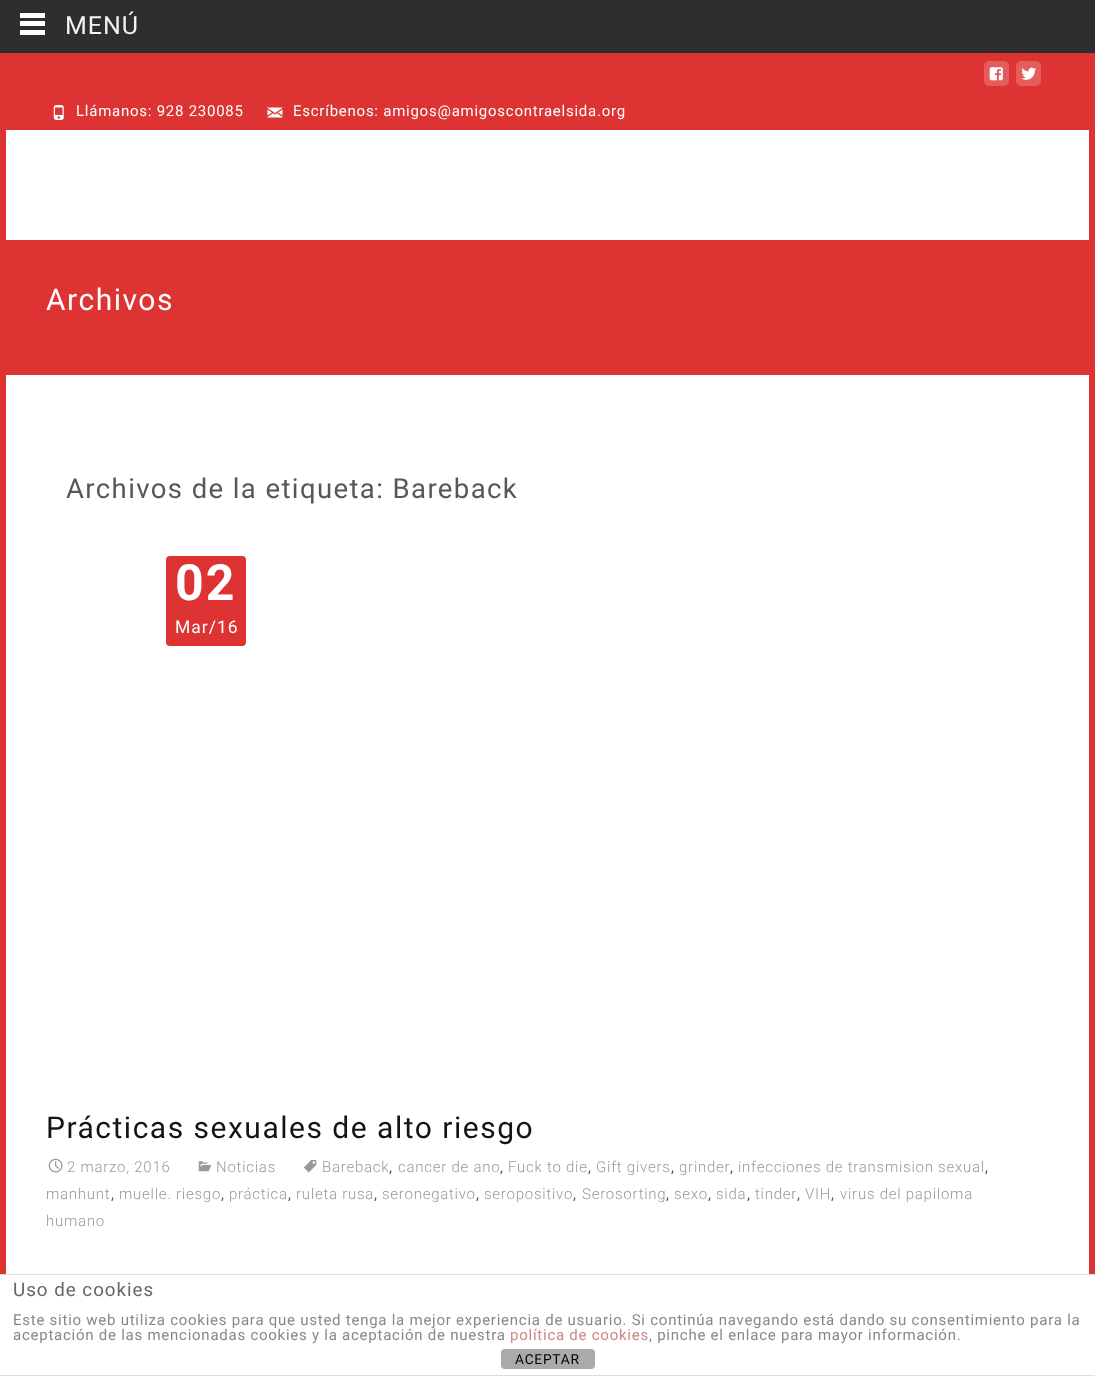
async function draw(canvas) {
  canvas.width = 1095;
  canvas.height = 1376;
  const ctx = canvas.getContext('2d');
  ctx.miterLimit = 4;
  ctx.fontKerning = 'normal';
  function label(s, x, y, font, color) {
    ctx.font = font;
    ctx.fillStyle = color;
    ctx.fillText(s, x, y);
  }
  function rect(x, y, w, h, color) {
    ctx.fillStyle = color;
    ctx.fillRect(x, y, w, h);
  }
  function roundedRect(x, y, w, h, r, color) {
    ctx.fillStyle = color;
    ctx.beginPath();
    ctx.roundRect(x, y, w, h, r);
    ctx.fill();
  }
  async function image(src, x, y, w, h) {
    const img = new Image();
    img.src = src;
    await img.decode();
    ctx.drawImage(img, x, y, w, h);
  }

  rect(0, 0, 1095, 1376, '#d33');
  rect(0, 0, 1095, 53, '#2e2e2e');
  rect(20, 13, 25, 5, '#fff');
  rect(20, 21, 25, 5, '#fff');
  rect(20, 30, 25, 5, '#fff');
  ctx.letterSpacing = '1px';
  label('MENÚ', 65, 34, '25px Roboto', '#f2f2f2');
  rect(6, 130, 1083, 1144, '#fff');
  roundedRect(984, 61, 25, 25, 5, '#e45c5c');
  await image('assets/img1.png', 989, 67, 14, 14);
  roundedRect(1016, 61, 25, 25, 5, '#e45c5c');
  await image('assets/img2.png', 1021, 67, 16, 13);
  await image('assets/img3.png', 53, 105, 11, 15);
  ctx.letterSpacing = '0.75px';
  label('Llámanos: 928 230085', 76, 116, '15px Roboto', '#fff');
  await image('assets/img4.png', 267, 107, 16, 11);
  label('Escríbenos: amigos@amigoscontraelsida.org', 293, 116, '15px Roboto', '#fff');
  rect(6, 240, 1083, 135, '#d33');
  ctx.letterSpacing = '1.5px';
  label('Archivos', 46, 310, '30px Roboto', '#fff');
  ctx.letterSpacing = '1.4px';
  label('Archivos de la etiqueta: Bareback', 66, 498, '27.5px Roboto', '#575757');
  roundedRect(166, 556, 80, 90, 4, '#d33');
  ctx.letterSpacing = '2px';
  label('02', 175, 600, 'bold 50px Roboto', '#fff');
  ctx.letterSpacing = '1px';
  label('Mar/16', 175, 633, '17.5px Roboto', '#fff');
  ctx.letterSpacing = '1.5px';
  label('Prácticas sexuales de alto riesgo', 46, 1138, '30px Roboto', '#141412');
  await image('assets/img5.png', 303, 1160, 14, 13);
  ctx.letterSpacing = '0.75px';
  label('Bareback', 322, 1172, '300 15px Roboto', '#999');
  label(',', 389, 1172, '15px Roboto', '#575757');
  label('cancer de ano', 398, 1172, '300 15px Roboto', '#999');
  label(',', 500, 1172, '15px Roboto', '#575757');
  label('Fuck to die', 508, 1172, '300 15px Roboto', '#999');
  label(',', 588, 1172, '15px Roboto', '#575757');
  label('Gift givers', 596, 1172, '300 15px Roboto', '#999');
  label(',', 671, 1172, '15px Roboto', '#575757');
  label('grinder', 679, 1172, '300 15px Roboto', '#999');
  label(',', 730, 1172, '15px Roboto', '#575757');
  label('infecciones de transmision sexual', 738, 1172, '300 15px Roboto', '#999');
  label(',', 985, 1172, '15px Roboto', '#575757');
  label('manhunt', 46, 1199, '300 15px Roboto', '#999');
  label(',', 111, 1199, '15px Roboto', '#575757');
  label('muelle. riesgo', 119, 1199, '300 15px Roboto', '#999');
  label(',', 221, 1199, '15px Roboto', '#575757');
  label('práctica', 229, 1199, '300 15px Roboto', '#999');
  label(',', 288, 1199, '15px Roboto', '#575757');
  label('ruleta rusa', 296, 1199, '300 15px Roboto', '#999');
  label(',', 374, 1199, '15px Roboto', '#575757');
  label('seronegativo', 382, 1199, '300 15px Roboto', '#999');
  label(',', 476, 1199, '15px Roboto', '#575757');
  label('seropositivo', 484, 1199, '300 15px Roboto', '#999');
  label(',', 573, 1199, '15px Roboto', '#575757');
  label('Serosorting', 582, 1199, '300 15px Roboto', '#999');
  label(',', 666, 1199, '15px Roboto', '#575757');
  label('sexo', 674, 1199, '300 15px Roboto', '#999');
  label(',', 708, 1199, '15px Roboto', '#575757');
  label('sida', 716, 1199, '300 15px Roboto', '#999');
  label(',', 747, 1199, '15px Roboto', '#575757');
  label('tinder', 755, 1199, '300 15px Roboto', '#999');
  label(',', 797, 1199, '15px Roboto', '#575757');
  label('VIH', 805, 1199, '300 15px Roboto', '#999');
  label(',', 831, 1199, '15px Roboto', '#575757');
  label('virus del papiloma', 840, 1199, '300 15px Roboto', '#999');
  label('humano', 46, 1226, '300 15px Roboto', '#999');
  await image('assets/img6.png', 48, 1158, 15, 15);
  label('2 marzo, 2016', 67, 1172, '300 15px Roboto', '#999');
  await image('assets/img7.png', 198, 1161, 14, 11);
  label('Noticias', 216, 1172, '300 15px Roboto', '#999');
  rect(0, 1275, 1095, 100, '#fff');
  rect(0, 1274, 1095, 1, '#ddd');
  rect(0, 1375, 1095, 1, '#ddd');
  ctx.letterSpacing = '1px';
  label('Uso de cookies', 13, 1296, '18.75px Roboto', '#666');
  ctx.letterSpacing = '0.75px';
  label('Este sitio web utiliza cookies para que usted tenga la mejor experiencia de usuario. Si continúa navegando está dando su consentimiento para la', 13, 1325, '15px Roboto', '#888');
  label('aceptación de las mencionadas cookies y la aceptación de nuestra', 13, 1340, '15px Roboto', '#888');
  label('política de cookies', 510, 1340, '15px Roboto', '#c88');
  label(', pinche el enlace para mayor información.', 649, 1340, '15px Roboto', '#888');
  roundedRect(501, 1349, 94, 20, 4, '#aaa');
  label('ACEPTAR', 515, 1364, '13.75px Roboto', '#000');
}

draw(document.querySelector('canvas'));
